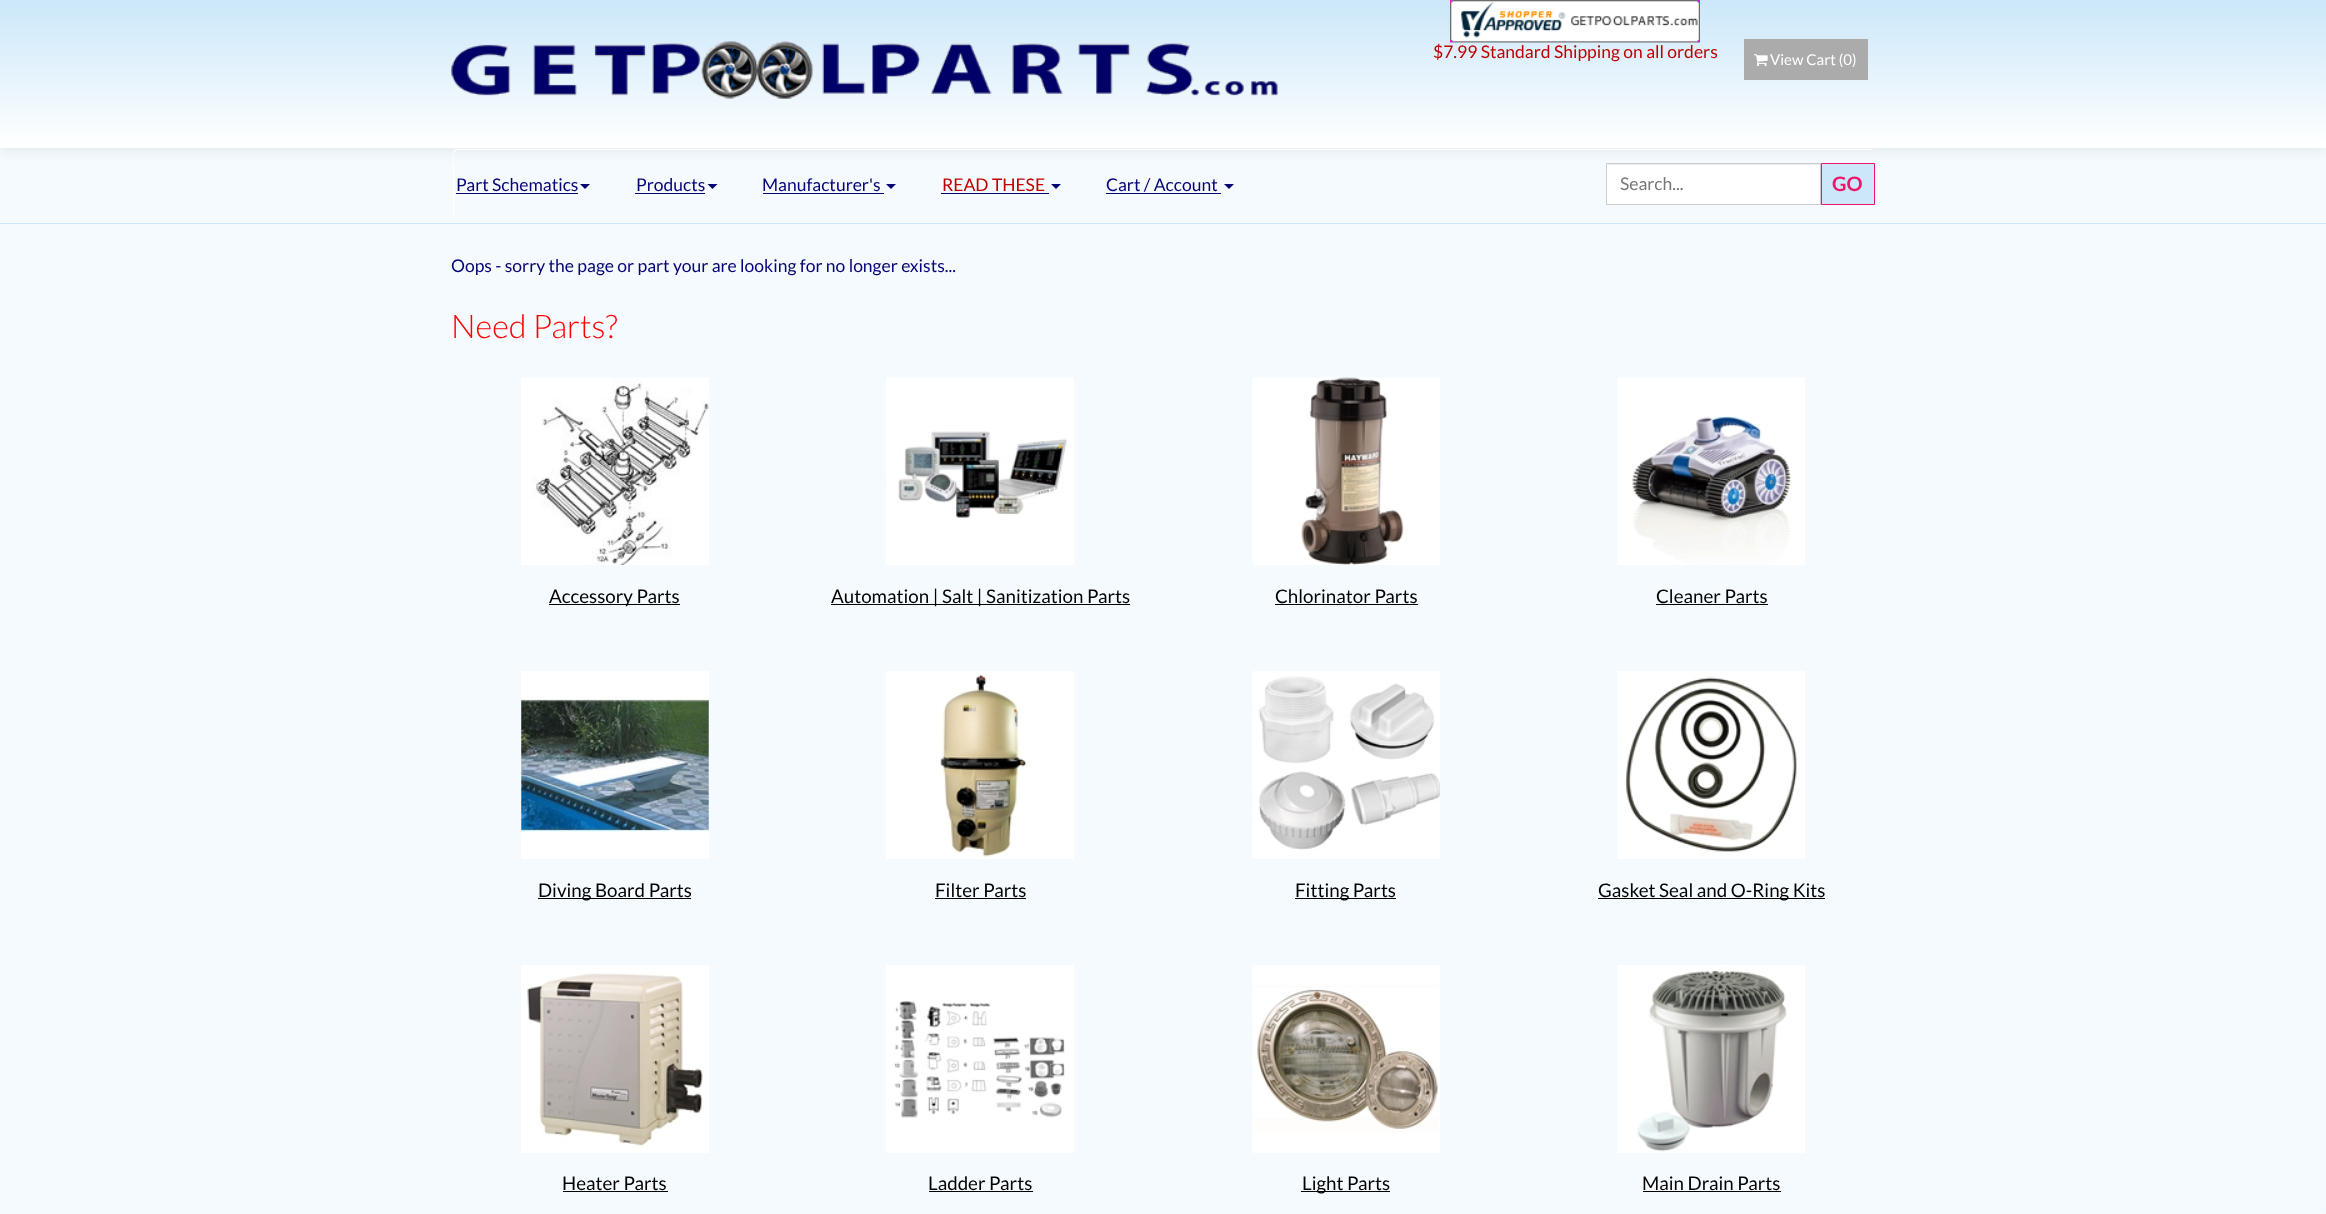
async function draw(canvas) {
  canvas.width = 2326;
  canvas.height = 1214;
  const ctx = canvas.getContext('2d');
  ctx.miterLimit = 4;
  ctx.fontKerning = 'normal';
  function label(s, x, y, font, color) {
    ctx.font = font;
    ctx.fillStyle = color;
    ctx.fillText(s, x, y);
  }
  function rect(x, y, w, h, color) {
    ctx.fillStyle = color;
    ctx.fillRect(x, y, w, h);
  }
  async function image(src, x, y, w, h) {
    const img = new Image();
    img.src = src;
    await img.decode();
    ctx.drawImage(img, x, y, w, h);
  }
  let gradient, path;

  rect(0, 0, 2326, 1214, '#f5fafe');
  ctx.fillStyle = '#0000001a';
  ctx.filter = 'blur(7.5px)';
  ctx.beginPath();
  ctx.rect(0, 0, 2326, 148);
  ctx.fill();
  ctx.filter = 'none';
  gradient = ctx.createLinearGradient(1163, 0, 1163, 148);
  gradient.addColorStop(0, '#cbe7f9');
  gradient.addColorStop(1, '#fff');
  ctx.fillStyle = gradient;
  ctx.fillRect(0, 0, 2326, 148);
  await image('assets/img1.png', 451, 41, 827, 58);
  await image('assets/img2.png', 1450, 0, 250, 43);
  label('$7.99 Standard Shipping on all orders', 1433, 58, '17.5px Lato', '#c00000');
  rect(1744, 39, 124, 41, '#ababab');
  await image('assets/img3.png', 1753, 54, 15, 12);
  label('View Cart (0)', 1770, 65, '15px Lato', '#fff');
  rect(0, 223, 2326, 1, '#cbe7f9');
  ctx.fillStyle = '#fff';
  path = new Path2D('M458 150H1872H1874C1873 150 1872 149 1871 149H457C455 149 453 151 453 153V217C453 218 453 219 454 220V165C454 162 451 150 458 150Z');
  ctx.fill(path);
  label('Part Schematics', 456, 191, '17.5px Lato', '#050375');
  rect(456, 193, 122, 1, '#050375');
  path = new Path2D('M580 184H590L585 189Z');
  ctx.fill(path);
  label('Products', 636, 191, '17.5px Lato', '#050375');
  rect(635, 193, 70, 1, '#050375');
  path = new Path2D('M707.5 184H717.5L712.5 189Z');
  ctx.fill(path);
  label('Manufacturer\'s', 762, 191, '17.5px Lato', '#050375');
  rect(763, 193, 121, 1, '#050375');
  path = new Path2D('M886 184H896L891 189Z');
  ctx.fill(path);
  label('READ THESE', 942, 191, '17.5px Lato', '#c00000');
  rect(941, 193, 108, 1, '#050375');
  path = new Path2D('M1051 184H1061L1056 189Z');
  ctx.fill(path);
  label('Cart / Account', 1106, 191, '17.5px Lato', '#050375');
  rect(1106, 193, 115, 1, '#050375');
  path = new Path2D('M1224 184H1234L1229 189Z');
  ctx.fill(path);
  rect(1607, 164, 213, 40, '#fff');
  rect(1608, 164, 212, 1, '#ececec');
  ctx.strokeStyle = '#ccc';
  ctx.strokeRect(1606.5, 163.5, 214, 41);
  label('Search...', 1620, 190, '17.5px Lato', '#767676');
  ctx.fillStyle = '#cbe7f9';
  ctx.beginPath();
  ctx.rect(1821.5, 163.5, 53, 41);
  ctx.fill();
  ctx.strokeStyle = '#ed156a';
  ctx.stroke();
  label('GO', 1832, 191, 'bold 20px Lato', '#ed156a');
  label('Oops - sorry the page or part your are looking for no longer exists...', 451, 272, '17.5px Lato', '#050375');
  label('Need Parts?', 451, 338, '300 32.5px Lato', '#f00');
  rect(521, 378, 188, 187, '#fff');
  await image('assets/img4.png', 522, 377, 187, 188);
  rect(549, 604, 131, 1, '#000');
  label('Accessory Parts', 549, 603, '18.75px Lato', '#000');
  rect(886, 378, 188, 187, '#fff');
  await image('assets/img5.png', 887, 377, 186, 141);
  rect(831, 604, 299, 1, '#000');
  label('Automation | Salt | Sanitization Parts', 831, 603, '18.75px Lato', '#000');
  await image('assets/img6.png', 1252, 377, 188, 188);
  label('Chlorinator Parts', 1275, 603, '18.75px Lato', '#000');
  rect(1275, 604, 143, 1, '#000');
  await image('assets/img7.png', 1617, 377, 188, 188);
  label('Cleaner Parts', 1656, 603, '18.75px Lato', '#000');
  rect(1656, 604, 112, 1, '#000');
  rect(521, 671, 188, 188, '#fff');
  await image('assets/img8.png', 521, 698, 188, 135);
  rect(538, 898, 153, 1, '#000');
  label('Diving Board Parts', 538, 897, '18.75px Lato', '#000');
  rect(886, 671, 188, 188, '#fff');
  await image('assets/img9.png', 940, 674, 87, 183);
  label('Filter Parts', 935, 897, '18.75px Lato', '#000');
  rect(935, 898, 91, 1, '#000');
  rect(1253, 671, 187, 188, '#fff');
  await image('assets/img10.png', 1252, 672, 188, 186);
  rect(1295, 898, 101, 1, '#000');
  label('Fitting Parts', 1295, 897, '18.75px Lato', '#000');
  rect(1618, 671, 187, 188, '#fff');
  await image('assets/img11.png', 1617, 672, 180, 186);
  rect(1598, 898, 227, 1, '#000');
  label('Gasket Seal and O-Ring Kits', 1598, 897, '18.75px Lato', '#000');
  rect(521, 965, 188, 188, '#fff');
  await image('assets/img12.png', 527, 973, 176, 173);
  label('Heater Parts', 562, 1190, '18.75px Lato', '#000');
  rect(563, 1191, 105, 1, '#000');
  rect(886, 965, 188, 188, '#fff');
  await image('assets/img13.png', 894, 1001, 171, 117);
  label('Ladder Parts', 928, 1190, '18.75px Lato', '#000');
  rect(929, 1191, 104, 1, '#000');
  rect(1253, 965, 187, 188, '#fff');
  await image('assets/img14.png', 1252, 965, 186, 187);
  rect(1301, 1191, 89, 1, '#000');
  label('Light Parts', 1302, 1190, '18.75px Lato', '#000');
  rect(1618, 965, 187, 188, '#fff');
  await image('assets/img15.png', 1617, 965, 170, 187);
  label('Main Drain Parts', 1642, 1190, '18.75px Lato', '#000');
  rect(1643, 1191, 138, 1, '#000');
  rect(2324, 1213, 2, 1, '#f5f5f5');
}

draw(document.querySelector('canvas'));
